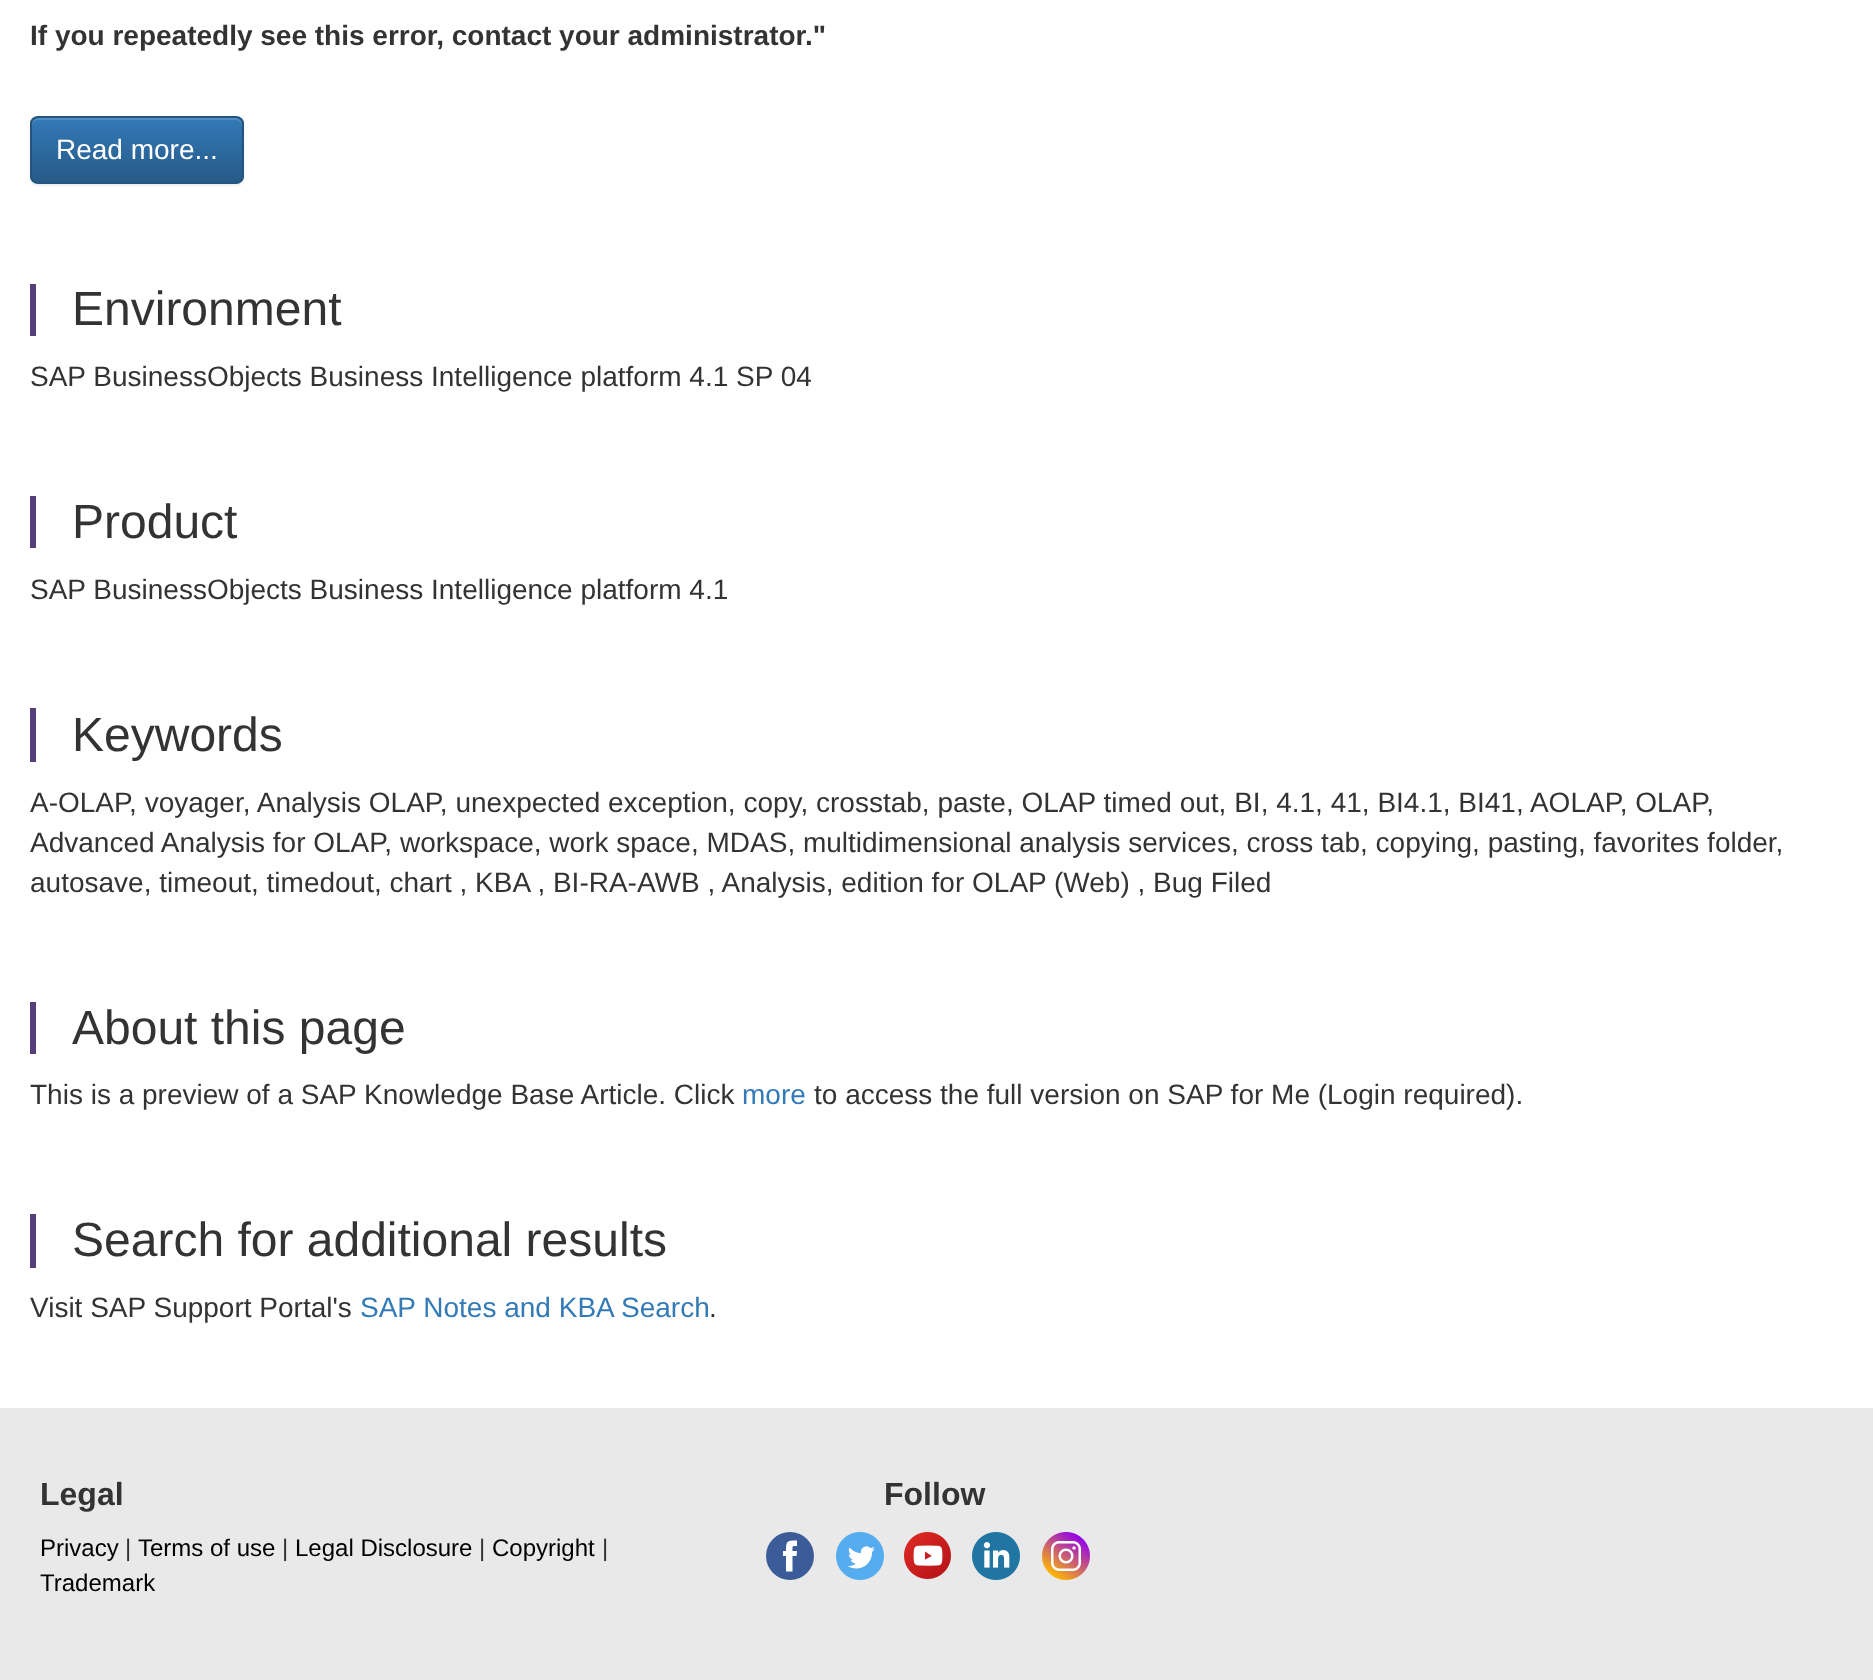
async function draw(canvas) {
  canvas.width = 1873;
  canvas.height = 1680;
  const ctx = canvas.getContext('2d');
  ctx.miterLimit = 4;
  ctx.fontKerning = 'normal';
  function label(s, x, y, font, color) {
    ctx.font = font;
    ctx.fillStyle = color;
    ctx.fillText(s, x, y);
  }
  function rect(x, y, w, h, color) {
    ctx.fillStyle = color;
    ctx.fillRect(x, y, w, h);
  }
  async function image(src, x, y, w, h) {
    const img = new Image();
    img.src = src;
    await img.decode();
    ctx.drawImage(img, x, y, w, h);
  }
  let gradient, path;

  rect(0, 0, 1873, 1680, '#fff');
  label('If you repeatedly see this error, contact your administrator."', 30, 45, 'bold 28px Liberation Sans', '#333');
  ctx.fillStyle = '#00000012';
  ctx.filter = 'blur(1px)';
  ctx.beginPath();
  ctx.roundRect(30, 118, 214, 68, 8);
  ctx.fill();
  ctx.filter = 'none';
  ctx.save();
  ctx.beginPath();
  ctx.roundRect(30, 116, 214, 68, 8);
  ctx.clip();
  gradient = ctx.createLinearGradient(137, 118, 137, 182);
  gradient.addColorStop(0, '#337ab7');
  gradient.addColorStop(1, '#265a88');
  ctx.fillStyle = gradient;
  ctx.fillRect(30, 118, 214, 64);
  ctx.restore();
  ctx.fillStyle = '#ffffff26';
  path = new Path2D('M38 120H236C239 120 242 123 242 126V124C242 121 239 118 236 118H38C35 118 32 121 32 124V126C32 123 35 120 38 120Z');
  ctx.fill(path);
  ctx.beginPath();
  ctx.roundRect(31, 117, 212, 66, 7);
  ctx.strokeStyle = '#245580';
  ctx.lineWidth = 2;
  ctx.stroke();
  label('Read more...', 56, 159, '28px Liberation Sans', '#fff');
  rect(30, 284, 6, 52, '#563d7c');
  label('Environment', 72, 325, '48px Liberation Sans', '#333');
  label('SAP BusinessObjects Business Intelligence platform 4.1 SP 04', 30, 386, '28px Liberation Sans', '#333');
  rect(30, 496, 6, 52, '#563d7c');
  label('Product', 72, 538, '48px Liberation Sans', '#333');
  label('SAP BusinessObjects Business Intelligence platform 4.1', 30, 599, '28px Liberation Sans', '#333');
  rect(30, 708, 6, 54, '#563d7c');
  label('Keywords', 72, 751, '48px Liberation Sans', '#333');
  label('A-OLAP, voyager, Analysis OLAP, unexpected exception, copy, crosstab, paste, OLAP timed out, BI, 4.1, 41, BI4.1, BI41, AOLAP, OLAP,', 30, 812, '28px Liberation Sans', '#333');
  label('Advanced Analysis for OLAP, workspace, work space, MDAS, multidimensional analysis services, cross tab, copying, pasting, favorites folder,', 30, 852, '28px Liberation Sans', '#333');
  label('autosave, timeout, timedout, chart , KBA , BI-RA-AWB , Analysis, edition for OLAP (Web) , Bug Filed', 30, 892, '28px Liberation Sans', '#333');
  rect(30, 1002, 6, 52, '#563d7c');
  label('About this page', 72, 1044, '48px Liberation Sans', '#333');
  label('This is a preview of a SAP Knowledge Base Article. Click', 30, 1104, '28px Liberation Sans', '#333');
  label('more', 742, 1104, '28px Liberation Sans', '#337ab7');
  label('to access the full version on SAP for Me (Login required).', 814, 1104, '28px Liberation Sans', '#333');
  rect(30, 1214, 6, 54, '#563d7c');
  label('Search for additional results', 72, 1256, '48px Liberation Sans', '#333');
  label('Visit SAP Support Portal\'s', 30, 1317, '28px Liberation Sans', '#333');
  label('SAP Notes and KBA Search', 360, 1317, '28px Liberation Sans', '#337ab7');
  label('.', 709, 1317, '28px Liberation Sans', '#333');
  rect(0, 1408, 1873, 272, '#e9e9e9');
  label('Legal', 40, 1505, 'bold 32px Liberation Sans', '#333');
  label('Privacy', 40, 1556, '24px Liberation Sans', '#000');
  label('|', 125, 1556, '24px Liberation Sans', '#333');
  label('Terms of use', 138, 1556, '24px Liberation Sans', '#000');
  label('|', 282, 1556, '24px Liberation Sans', '#333');
  label('Legal Disclosure', 295, 1556, '24px Liberation Sans', '#000');
  label('|', 479, 1556, '24px Liberation Sans', '#333');
  label('Copyright', 492, 1556, '24px Liberation Sans', '#000');
  label('|', 602, 1556, '24px Liberation Sans', '#333');
  label('Trademark', 40, 1591, '24px Liberation Sans', '#000');
  label('Follow', 884, 1505, 'bold 32px Liberation Sans', '#333');
  ctx.fillStyle = '#3b5b99';
  ctx.beginPath();
  ctx.arc(790, 1556, 24, 0, 2 * Math.PI);
  ctx.fill();
  await image('assets/img1.png', 836, 1532, 48, 48);
  await image('assets/img2.png', 904, 1532, 47, 47);
  await image('assets/img3.png', 972, 1532, 48, 48);
  await image('assets/img4.png', 1042, 1532, 48, 48);
  ctx.fillStyle = '#fff';
  path = new Path2D('M797 1546C792 1546 792.5 1545.5 792.5 1551H797L796.5 1556H792.5V1571.5H786V1556H783V1551H786C786 1540.5 787.5 1540.5 797 1540.5Z');
  ctx.fill(path);
}

draw(document.querySelector('canvas'));
